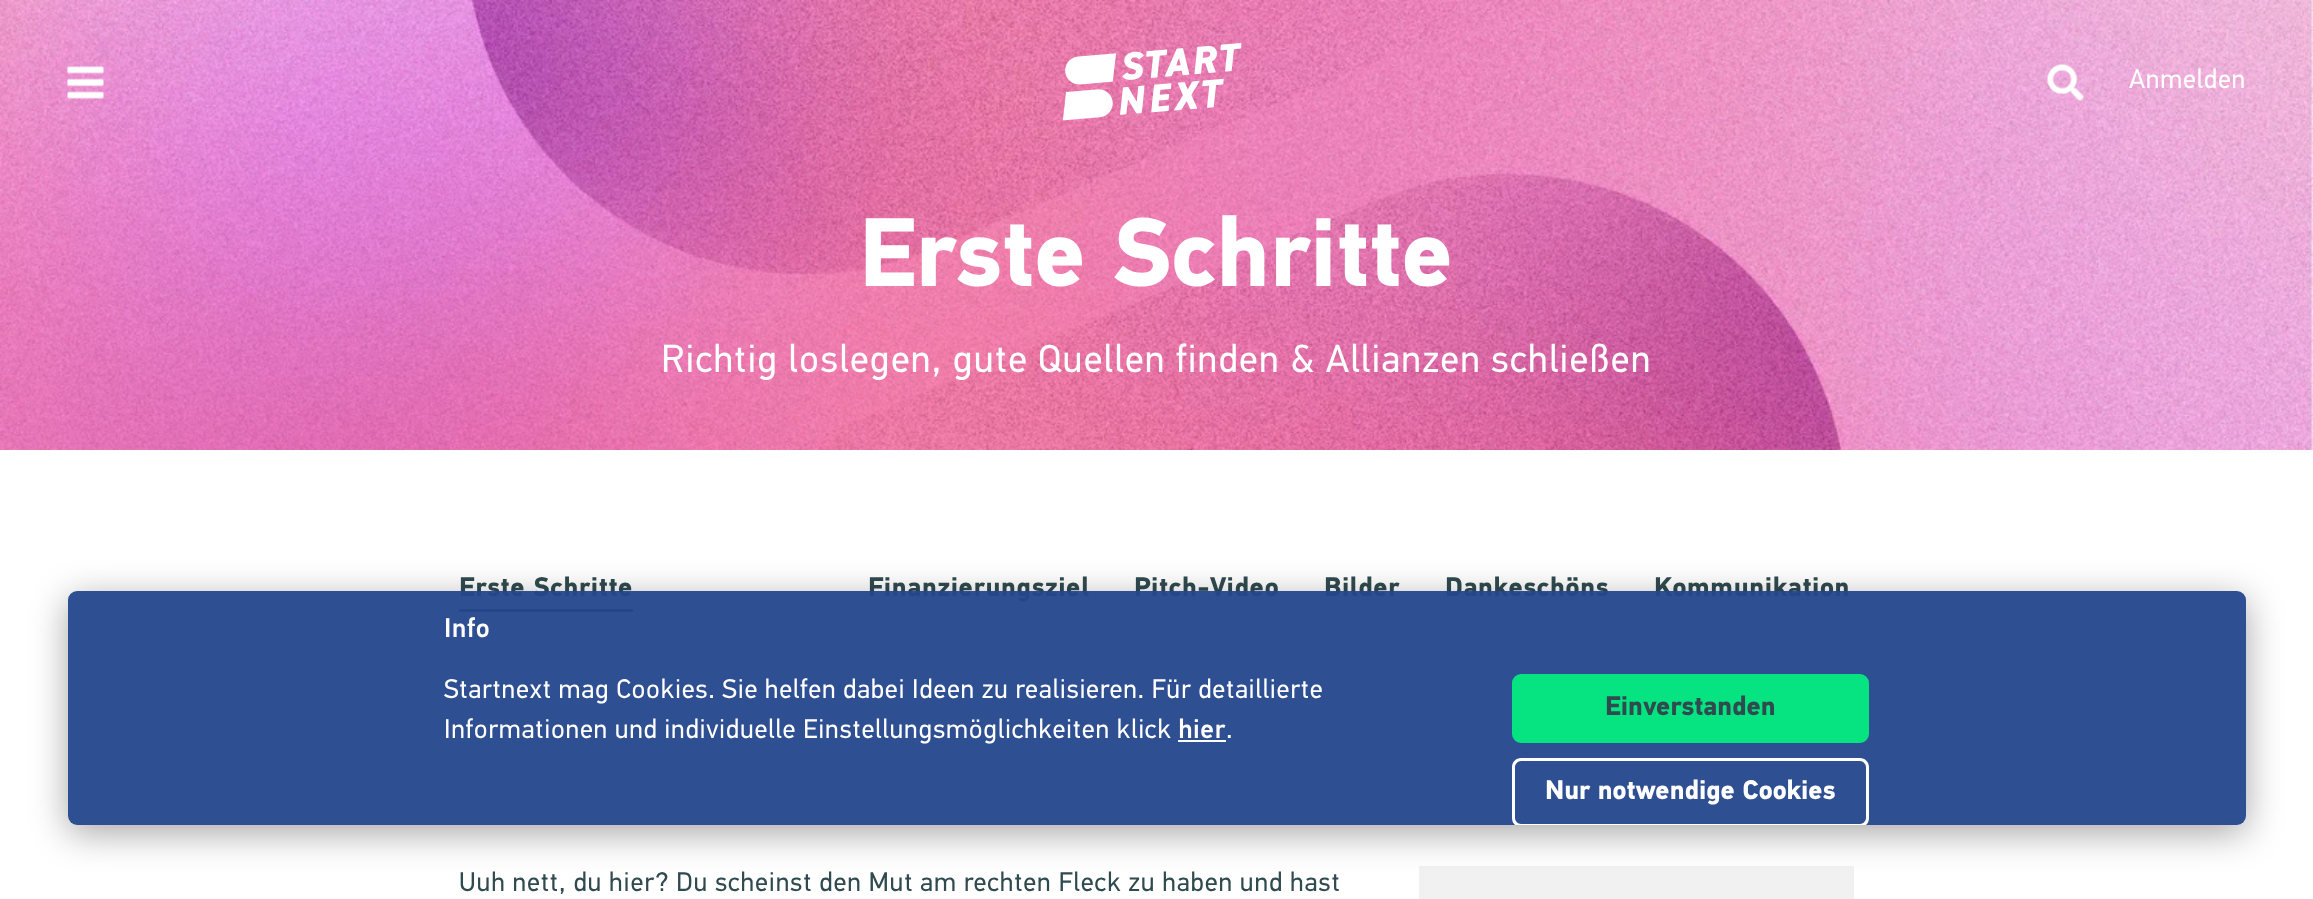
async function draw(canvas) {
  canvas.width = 2313;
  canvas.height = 899;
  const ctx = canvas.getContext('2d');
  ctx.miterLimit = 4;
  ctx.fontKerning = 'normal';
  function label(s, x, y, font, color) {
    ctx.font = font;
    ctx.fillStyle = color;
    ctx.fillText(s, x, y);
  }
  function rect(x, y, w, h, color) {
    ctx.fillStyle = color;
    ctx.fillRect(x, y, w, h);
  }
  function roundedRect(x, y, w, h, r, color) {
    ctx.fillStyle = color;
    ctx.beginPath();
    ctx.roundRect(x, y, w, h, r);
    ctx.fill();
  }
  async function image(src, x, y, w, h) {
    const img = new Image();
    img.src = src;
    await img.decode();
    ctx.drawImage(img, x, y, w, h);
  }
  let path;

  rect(0, 0, 2313, 899, '#fff');
  await image('assets/img4.png', 0, 0, 2313, 450);
  await image('assets/img1.png', 67, 66, 37, 33);
  await image('assets/img2.png', 1062, 43, 180, 78);
  await image('assets/img3.png', 2047, 64, 37, 37);
  ctx.letterSpacing = '0.68px';
  label('Anmelden', 2129, 88, '27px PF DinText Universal', '#fff');
  ctx.letterSpacing = '0px';
  label('Erste Schritte', 859, 286, 'bold 97.5px PF DinText Universal', '#fff');
  ctx.letterSpacing = '1.17px';
  label('Richtig loslegen, gute Quellen finden & Allianzen schließen', 661, 372, '39px PF DinText Universal', '#fff');
  ctx.letterSpacing = '0.68px';
  label('Erste Schritte', 459, 596, 'bold 27px PF DinText Universal', '#304b50');
  rect(459, 609, 174, 3, '#304b50');
  label('Finanzierungsziel', 868, 596, 'bold 27px PF DinText Universal', '#304b50');
  label('Pitch-Video', 1134, 596, 'bold 27px PF DinText Universal', '#304b50');
  label('Bilder', 1324, 596, 'bold 27px PF DinText Universal', '#304b50');
  label('Dankeschöns', 1445, 596, 'bold 27px PF DinText Universal', '#304b50');
  label('Kommunikation', 1654, 596, 'bold 27px PF DinText Universal', '#304b50');
  ctx.letterSpacing = '0.8px';
  label('Uuh nett, du hier? Du scheinst den Mut am rechten Fleck zu haben und hast', 459, 891, '27px PF DinText Universal', '#304b50');
  rect(1419, 866, 435, 33, '#f1f1f1');
  ctx.save();
  path = new Path2D('M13 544H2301V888H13ZM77 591H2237C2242 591 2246 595 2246 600V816C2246 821 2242 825 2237 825H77C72 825 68 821 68 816V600C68 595 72 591 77 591Z');
  ctx.clip(path, 'evenodd');
  ctx.fillStyle = '#00000059';
  ctx.filter = 'blur(18px)';
  ctx.beginPath();
  ctx.roundRect(68, 599, 2178, 234, 9);
  ctx.fill();
  ctx.filter = 'none';
  ctx.restore();
  roundedRect(68, 591, 2178, 234, 9, '#24468df2');
  ctx.letterSpacing = '0.68px';
  label('Info', 444, 637, '500 27px PF DinText Universal', '#fff');
  label('Startnext mag Cookies. Sie helfen dabei Ideen zu realisieren. Für detaillierte', 444, 698, '27px PF DinText Universal', '#fff');
  label('Informationen und individuelle Einstellungsmöglichkeiten klick', 444, 738, '27px PF DinText Universal', '#fff');
  label('hier', 1178, 738, '500 27px PF DinText Universal', '#fff');
  rect(1178, 740, 48, 2, '#fff');
  label('.', 1226, 738, '27px PF DinText Universal', '#fff');
  ctx.fillStyle = '#06e481';
  ctx.beginPath();
  ctx.roundRect(1513.5, 675.5, 354, 66, 7.5);
  ctx.fill();
  ctx.strokeStyle = '#06e481';
  ctx.lineWidth = 3;
  ctx.stroke();
  ctx.letterSpacing = '0px';
  label('Einverstanden', 1605, 715, 'bold 27px PF DinText Universal', '#304b50');
  ctx.fillStyle = '#fff';
  path = new Path2D('M1521 758H1860C1865 758 1869 762 1869 767V818C1869 821 1868 823 1866 825H1515C1513 823 1512 821 1512 818V767C1512 762 1516 758 1521 758ZM1521 761C1518 761 1515 764 1515 767V818C1515 821 1518 824 1521 824H1860C1863 824 1866 821 1866 818V767C1866 764 1863 761 1860 761Z');
  ctx.fill(path, 'evenodd');
  label('Nur notwendige Cookies', 1545, 799, 'bold 27px PF DinText Universal', '#fff');
}

draw(document.querySelector('canvas'));
